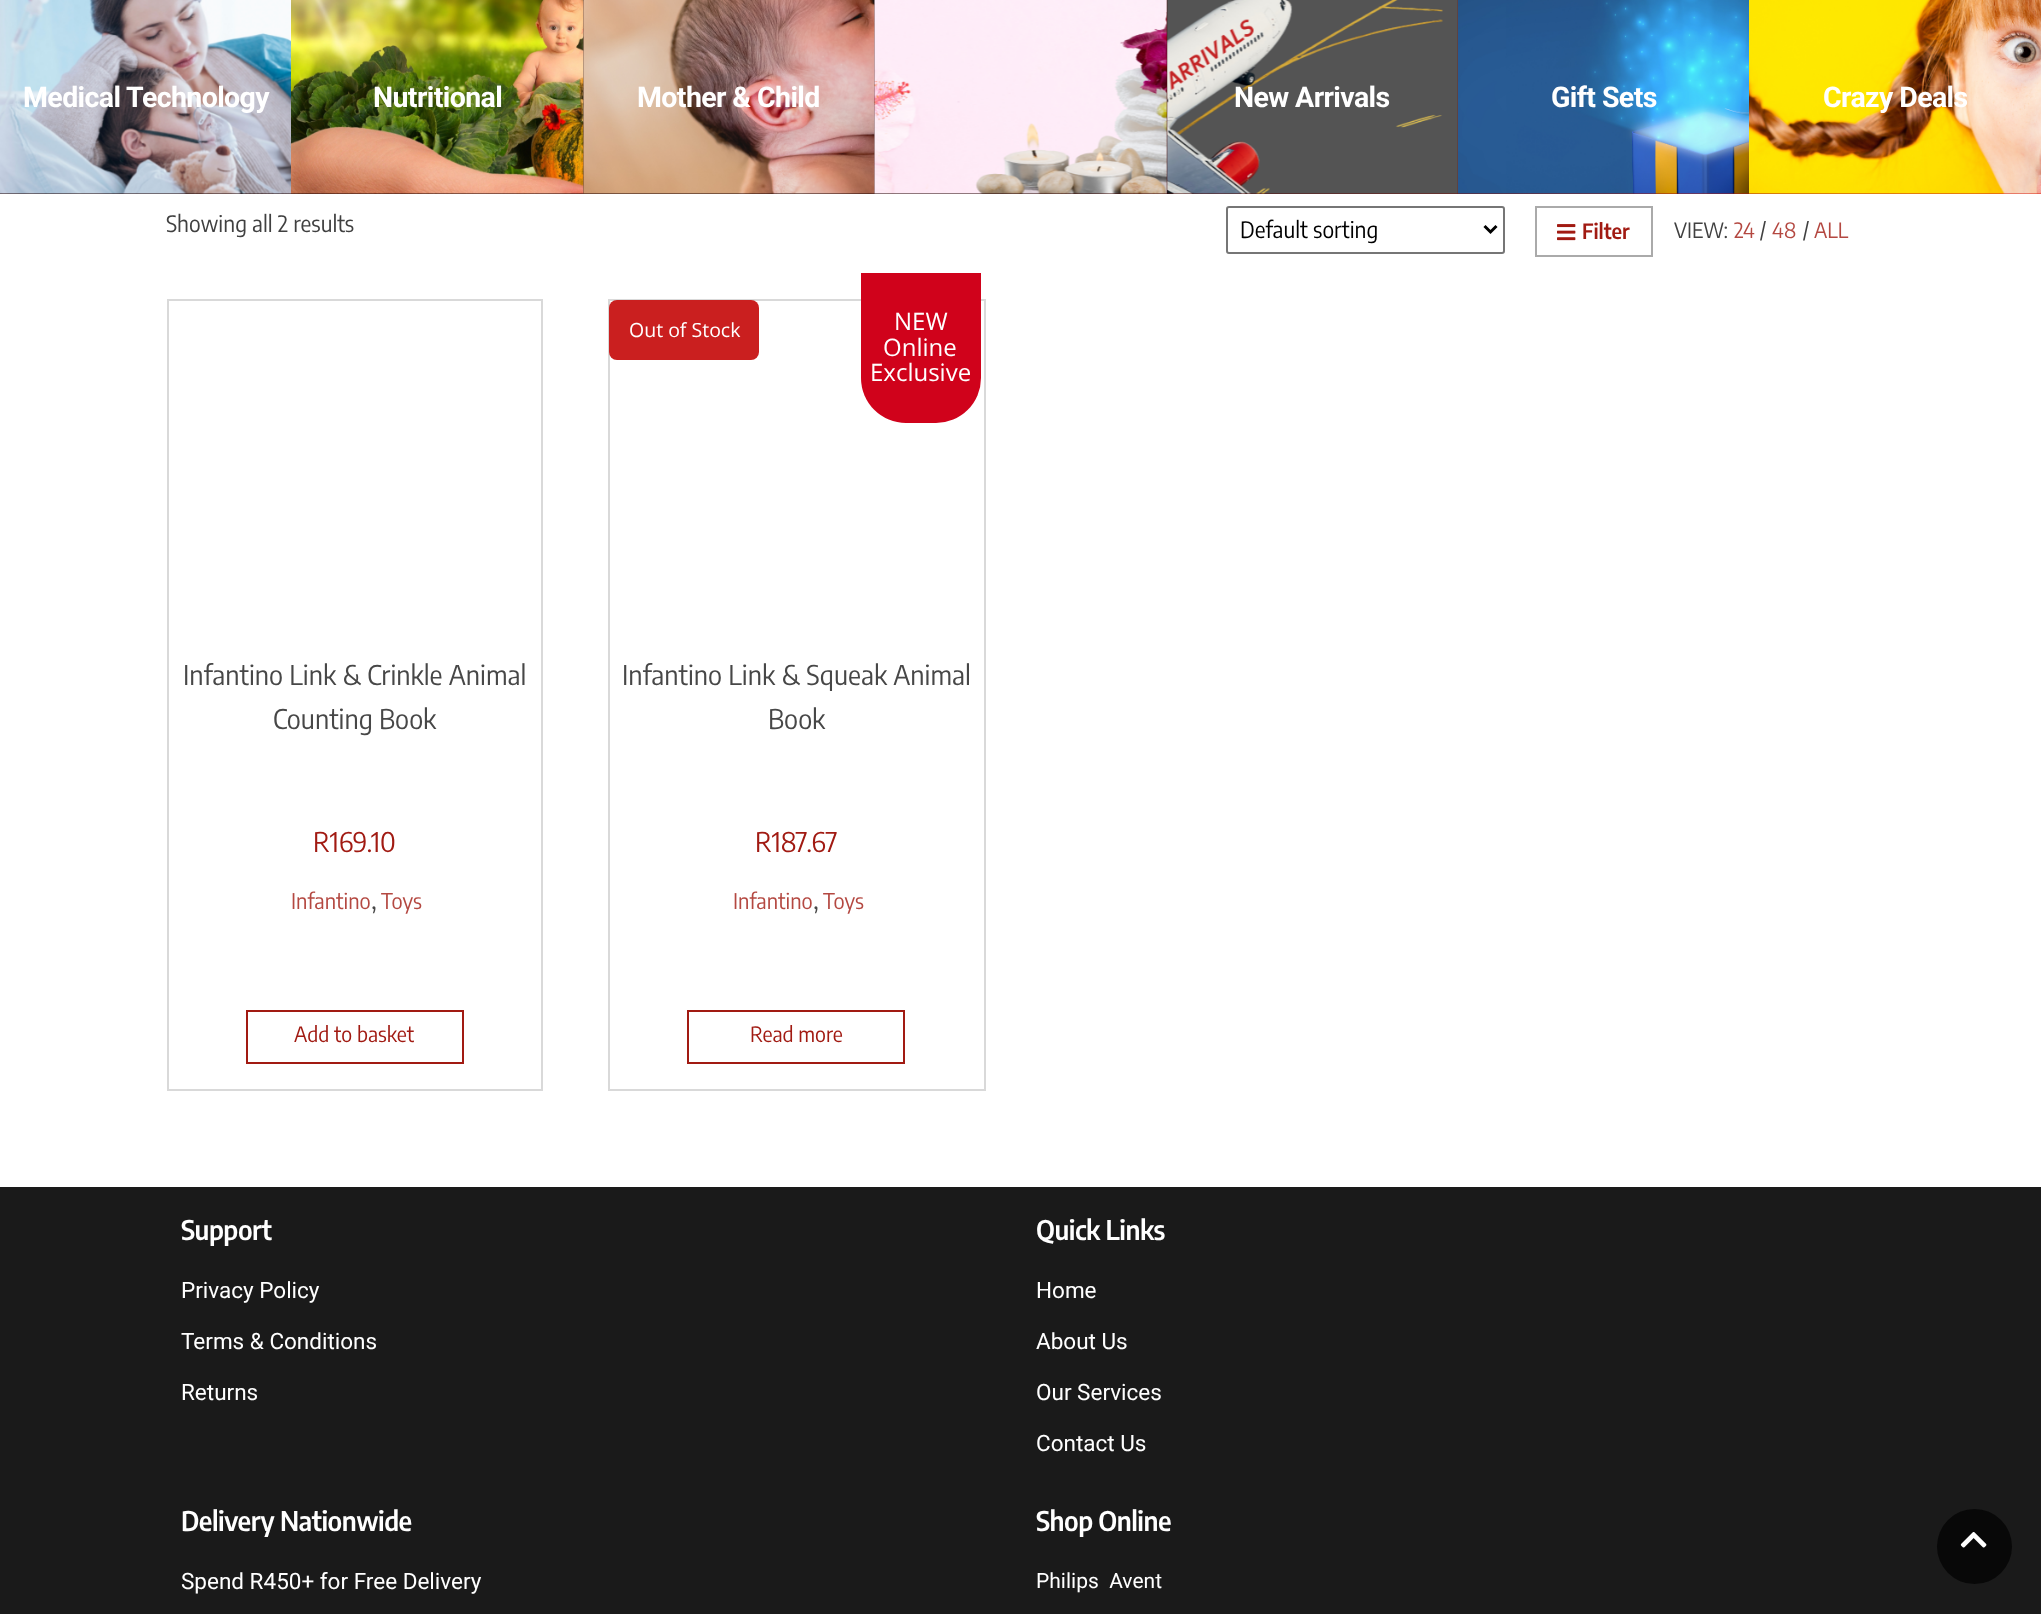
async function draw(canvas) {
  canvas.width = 2041;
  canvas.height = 1614;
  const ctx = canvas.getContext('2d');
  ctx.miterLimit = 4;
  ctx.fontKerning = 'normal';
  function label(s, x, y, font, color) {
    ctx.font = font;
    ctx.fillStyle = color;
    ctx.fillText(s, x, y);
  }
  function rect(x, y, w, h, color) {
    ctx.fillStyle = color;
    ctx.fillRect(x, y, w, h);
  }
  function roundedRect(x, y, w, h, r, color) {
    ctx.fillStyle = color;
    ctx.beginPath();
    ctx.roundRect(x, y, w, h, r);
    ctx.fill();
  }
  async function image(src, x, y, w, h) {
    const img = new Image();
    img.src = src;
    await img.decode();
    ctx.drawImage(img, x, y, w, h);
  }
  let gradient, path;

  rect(0, 0, 2041, 1614, '#fff');
  gradient = ctx.createLinearGradient(0, 97, 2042, 97);
  gradient.addColorStop(0.47, '#200403');
  gradient.addColorStop(1, '#db2419');
  ctx.fillStyle = gradient;
  ctx.fillRect(0, 0, 2041, 194);
  await image('assets/img1.png', 0, 0, 291, 194);
  ctx.letterSpacing = '-0.6px';
  label('Medical Technology', 23, 107, 'bold 28.5px Roboto', '#fff');
  await image('assets/img2.png', 291, 0, 293, 194);
  label('Nutritional', 373, 107, 'bold 28.5px Roboto', '#fff');
  await image('assets/img3.png', 583, 0, 292, 194);
  label('Mother & Child', 637, 107, 'bold 28.5px Roboto', '#fff');
  await image('assets/img4.png', 874, 0, 293, 194);
  await image('assets/img5.png', 1167, 0, 291, 194);
  label('New Arrivals', 1234, 107, 'bold 28.5px Roboto', '#fff');
  await image('assets/img6.png', 1458, 0, 291, 194);
  label('Gift Sets', 1551, 107, 'bold 28.5px Roboto', '#fff');
  await image('assets/img7.png', 1749, 0, 292, 194);
  label('Crazy Deals', 1823, 107, 'bold 28.5px Roboto', '#fff');
  ctx.letterSpacing = '0px';
  label('Showing all 2 results', 166, 232, '22.5px Encode Sans Semi Condensed', '#404040');
  ctx.beginPath();
  ctx.roundRect(1227, 207, 277, 46, 2);
  ctx.strokeStyle = '#767676';
  ctx.lineWidth = 2;
  ctx.stroke();
  path = new Path2D('M1484.5 226L1490.5 232L1496.5 226');
  ctx.strokeStyle = '#000';
  ctx.lineWidth = 3;
  ctx.stroke(path);
  label('Default sorting', 1240, 238, '22.5px Encode Sans Semi Condensed', '#000');
  ctx.strokeStyle = '#aaa';
  ctx.lineWidth = 2;
  ctx.strokeRect(1536, 207, 116, 49);
  await image('assets/img8.png', 1557, 224, 19, 17);
  label('Filter', 1582, 239, '600 21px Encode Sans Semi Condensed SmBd', '#a11a12');
  label('VIEW:', 1674, 238, '21px Encode Sans Semi Condensed', '#404040');
  label('24', 1734, 238, '21px Encode Sans Semi Condensed', '#b44841');
  label('/', 1760, 238, '21px Encode Sans Semi Condensed', '#404040');
  label('48', 1772, 238, '21px Encode Sans Semi Condensed', '#b44841');
  label('/', 1803, 238, '21px Encode Sans Semi Condensed', '#404040');
  label('ALL', 1814, 238, '21px Encode Sans Semi Condensed', '#b44841');
  ctx.strokeStyle = '#d9d9d9';
  ctx.strokeRect(168, 300, 374, 790);
  label('Infantino Link & Crinkle Animal', 183, 685, '27px Encode Sans Semi Condensed', '#474747');
  label('Counting Book', 273, 729, '27px Encode Sans Semi Condensed', '#474747');
  label('R169.10', 313, 852, '27px Encode Sans Semi Condensed', '#a11a12');
  label('Infantino', 291, 909, '21.5px Encode Sans Semi Condensed', '#b44841');
  label(',', 371, 909, '27px Encode Sans Semi Condensed', '#474747');
  label('Toys', 381, 909, '21.5px Encode Sans Semi Condensed', '#b44841');
  ctx.strokeStyle = '#a11a12';
  ctx.strokeRect(247, 1011, 216, 52);
  label('Add to basket', 294, 1042, '21px Encode Sans Semi Condensed', '#a11a12');
  ctx.strokeStyle = '#d9d9d9';
  ctx.strokeRect(609, 300, 376, 790);
  ctx.fillStyle = '#d0021b';
  ctx.beginPath();
  ctx.roundRect(861, 273, 120, 150, [0, 0, 45, 45]);
  ctx.fill();
  label('NEW', 894, 330, '24px Open Sans', '#fff');
  label('Online', 883, 356, '24px Open Sans', '#fff');
  label('Exclusive', 870, 381, '24px Open Sans', '#fff');
  label('Infantino Link & Squeak Animal', 622, 685, '27px Encode Sans Semi Condensed', '#474747');
  label('Book', 768, 729, '27px Encode Sans Semi Condensed', '#474747');
  label('R187.67', 755, 852, '27px Encode Sans Semi Condensed', '#a11a12');
  roundedRect(609, 300, 150, 60, 8, '#ca1f1f');
  label('Out of Stock', 629, 337, '19.5px Open Sans', '#fff');
  label('Infantino', 733, 909, '21.5px Encode Sans Semi Condensed', '#b44841');
  label(',', 813, 909, '27px Encode Sans Semi Condensed', '#474747');
  label('Toys', 823, 909, '21.5px Encode Sans Semi Condensed', '#b44841');
  ctx.strokeStyle = '#a11a12';
  ctx.strokeRect(688, 1011, 216, 52);
  label('Read more', 750, 1042, '21px Encode Sans Semi Condensed', '#a11a12');
  rect(0, 1187, 2041, 427, '#1a1a1a');
  ctx.letterSpacing = '-0.5px';
  label('Support', 181, 1240, '600 27px Encode Sans Semi Condensed SmBd', '#fff');
  ctx.letterSpacing = '0px';
  label('Privacy Policy', 181, 1298, '22.5px Roboto', '#fff');
  label('Terms & Conditions', 181, 1349, '22.5px Roboto', '#fff');
  label('Returns', 181, 1400, '22.5px Roboto', '#fff');
  ctx.letterSpacing = '-0.5px';
  label('Quick Links', 1036, 1240, '600 27px Encode Sans Semi Condensed SmBd', '#fff');
  ctx.letterSpacing = '0px';
  label('Home', 1036, 1298, '22.5px Roboto', '#fff');
  label('About Us', 1036, 1349, '22.5px Roboto', '#fff');
  label('Our Services', 1036, 1400, '22.5px Roboto', '#fff');
  label('Contact Us', 1036, 1451, '22.5px Roboto', '#fff');
  ctx.letterSpacing = '-0.5px';
  label('Delivery Nationwide', 181, 1531, '600 27px Encode Sans Semi Condensed SmBd', '#fff');
  ctx.letterSpacing = '0px';
  label('Spend R450+ for Free Delivery', 181, 1589, '22.5px Roboto', '#fff');
  ctx.letterSpacing = '-0.5px';
  label('Shop Online', 1036, 1531, '600 27px Encode Sans Semi Condensed SmBd', '#fff');
  ctx.letterSpacing = '0px';
  label('Philips  Avent', 1036, 1588, '21px Roboto', '#fff');
  ctx.fillStyle = '#080808';
  ctx.beginPath();
  ctx.arc(1974.5, 1546.5, 37.5, 0, 2 * Math.PI);
  ctx.fill();
  await image('assets/img9.png', 1960, 1532, 27, 16);
}

draw(document.querySelector('canvas'));
